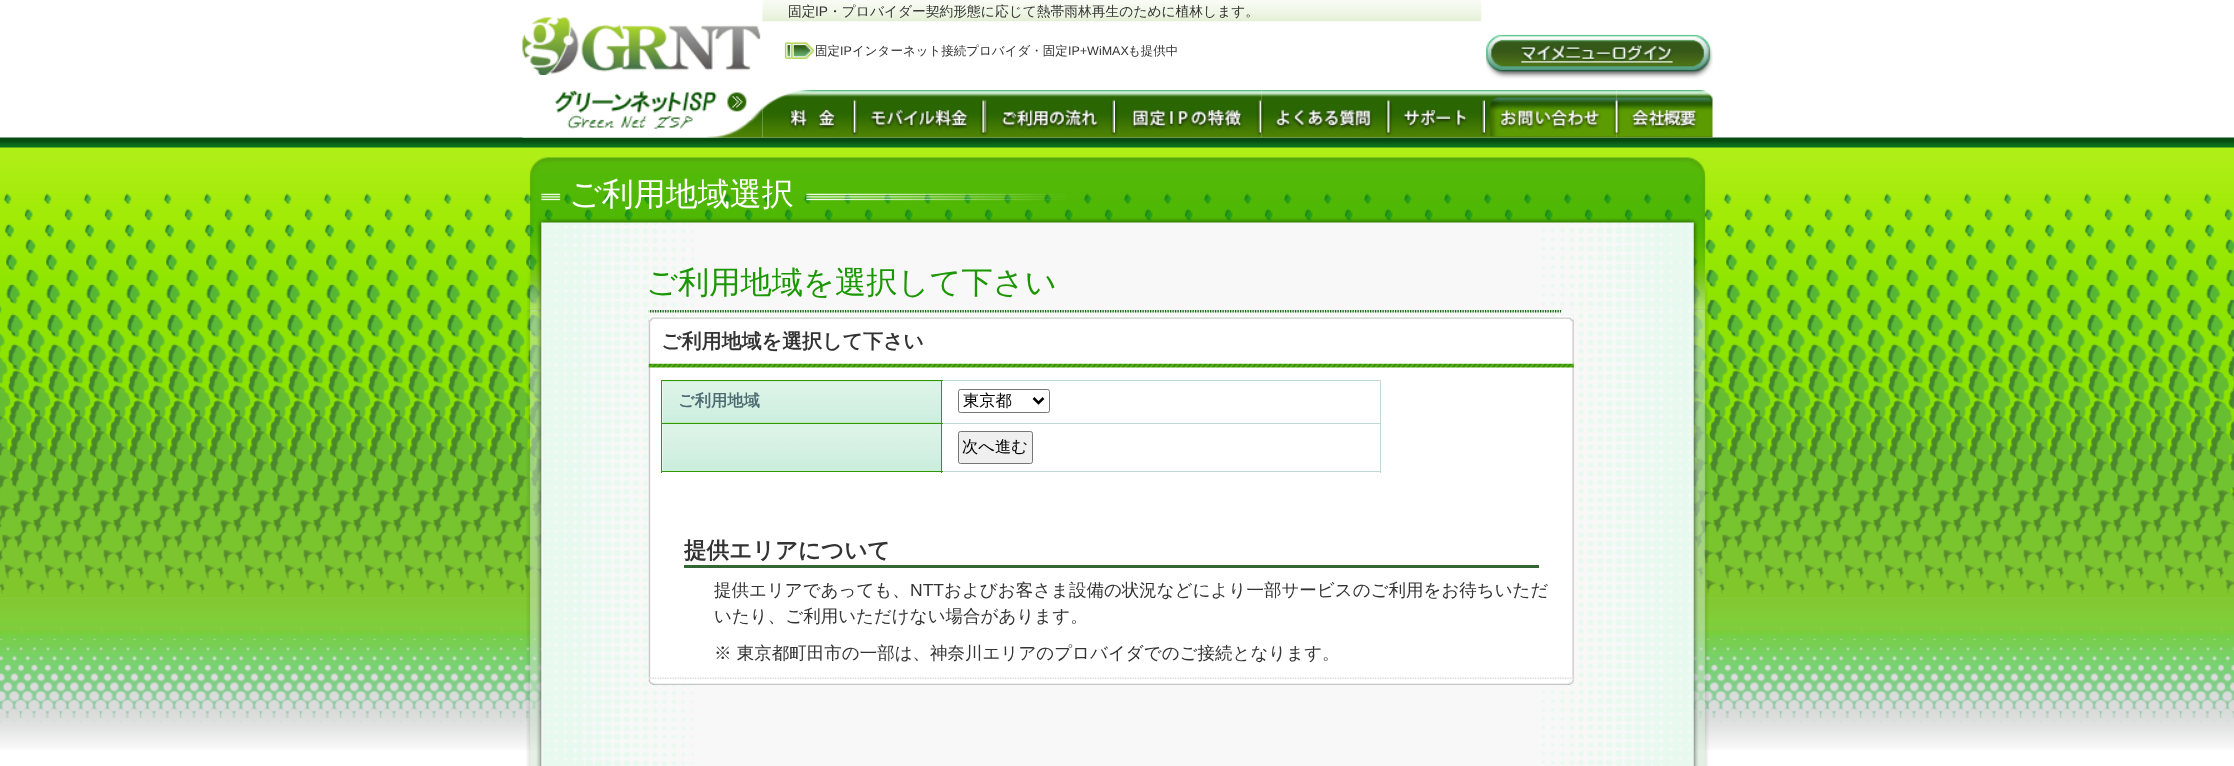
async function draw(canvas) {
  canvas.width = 2234;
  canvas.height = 766;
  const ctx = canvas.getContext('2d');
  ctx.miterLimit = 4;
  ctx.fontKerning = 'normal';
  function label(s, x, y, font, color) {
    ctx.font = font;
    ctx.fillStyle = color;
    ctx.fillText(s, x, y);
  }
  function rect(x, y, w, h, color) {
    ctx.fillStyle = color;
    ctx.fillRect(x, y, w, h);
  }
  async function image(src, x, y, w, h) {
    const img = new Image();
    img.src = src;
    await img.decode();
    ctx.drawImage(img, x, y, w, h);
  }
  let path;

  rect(0, 0, 2234, 766, '#fff');
  await image('assets/img1.png', 522, 17, 239, 58);
  await image('assets/img2.png', 762, 0, 720, 22);
  label('固定', 788, 16, '500 13.75px WenQuanYi Zen Hei', '#333');
  label('IP', 815, 16, '13.75px Liberation Sans', '#333');
  label('・プロバイダー契約形態に応じて熱帯雨林再生のために植林します。', 828, 16, '500 13.75px WenQuanYi Zen Hei', '#333');
  await image('assets/img3.png', 784, 42, 30, 17);
  label('固定', 815, 55, '500 12.5px WenQuanYi Zen Hei', '#333');
  label('IP', 840, 55, '12.5px Liberation Sans', '#333');
  label('インターネット接続プロバイダ・固定', 852, 55, '500 12.5px WenQuanYi Zen Hei', '#333');
  label('IP+WiMAX', 1068, 55, '12.5px Liberation Sans', '#333');
  label('も提供中', 1128, 55, '500 12.5px WenQuanYi Zen Hei', '#333');
  await image('assets/img4.png', 1486, 34, 227, 45);
  await image('assets/img14.png', 0, 137, 2234, 613);
  await image('assets/img5.png', 522, 90, 241, 48);
  await image('assets/img6.png', 762, 90, 93, 48);
  await image('assets/img7.png', 855, 90, 130, 48);
  await image('assets/img8.png', 985, 90, 130, 48);
  await image('assets/img9.png', 1115, 90, 147, 48);
  await image('assets/img10.png', 1261, 90, 129, 48);
  await image('assets/img11.png', 1390, 90, 95, 48);
  await image('assets/img12.png', 1485, 90, 132, 48);
  await image('assets/img13.png', 1616, 90, 97, 48);
  await image('assets/img15.png', 527, 157, 1181, 155);
  await image('assets/img16.png', 541, 193, 20, 8);
  label('ご利用地域選択', 569, 205, '500 32px WenQuanYi Zen Hei', '#fff');
  await image('assets/img17.png', 806, 193, 260, 8);
  label('ご利用地域を選択して下さい', 646, 293, '500 31.25px WenQuanYi Zen Hei', '#1c9704');
  await image('assets/img18.png', 526, 310, 1183, 455);
  await image('assets/img19.png', 648, 310, 914, 3);
  await image('assets/img20.png', 648, 678, 926, 7);
  await image('assets/img21.png', 648, 316, 926, 363);
  await image('assets/img22.png', 648, 316, 926, 6);
  await image('assets/img23.png', 648, 363, 926, 5);
  label('ご利用地域を選択して下さい', 661, 348, 'bold 20px WenQuanYi Zen Hei', '#333');
  await image('assets/img24.png', 649, 677, 923, 2);
  rect(663, 381, 278, 42, '#aee099');
  await image('assets/img25.png', 662, 381, 279, 42);
  rect(941, 380, 440, 1, '#c1dad7');
  rect(661, 380, 282, 1, '#329902');
  rect(1380, 423, 1, 50, '#c1dad7');
  rect(1380, 380, 1, 44, '#c1dad7');
  rect(941, 471, 440, 1, '#c1dad7');
  rect(941, 423, 1, 50, '#329902');
  rect(941, 423, 440, 1, '#c1dad7');
  rect(941, 380, 1, 44, '#329902');
  rect(661, 471, 282, 1, '#329902');
  rect(661, 423, 1, 50, '#329902');
  rect(661, 423, 282, 1, '#329902');
  rect(661, 380, 1, 44, '#329902');
  label('ご利用地域', 678, 406, 'bold 16.25px WenQuanYi Zen Hei', '#4f6b72');
  ctx.beginPath();
  ctx.roundRect(958.5, 389.5, 91, 23, 2);
  ctx.strokeStyle = '#767676';
  ctx.stroke();
  path = new Path2D('M1033.5 398L1038.5 403L1043.5 398');
  ctx.strokeStyle = '#000';
  ctx.lineWidth = 2.5;
  ctx.stroke(path);
  label('東京都', 963, 406, '500 16.25px WenQuanYi Zen Hei', '#000');
  await image('assets/img26.png', 662, 424, 279, 47);
  ctx.fillStyle = '#efefef';
  ctx.beginPath();
  ctx.roundRect(958.5, 431.5, 74, 32, 2);
  ctx.fill();
  ctx.strokeStyle = '#767676';
  ctx.lineWidth = 1;
  ctx.stroke();
  label('次へ進む', 962, 452, '500 16.25px WenQuanYi Zen Hei', '#000');
  rect(684, 565, 855, 3, '#363');
  label('提供エリアについて', 684, 558, 'bold 22.5px WenQuanYi Zen Hei', '#333');
  label('提供エリアであっても、', 714, 596, '500 17.5px WenQuanYi Zen Hei', '#333');
  label('NTT', 910, 596, '17.5px Liberation Sans', '#333');
  label('およびお客さま設備の状況などにより一部サービスのご利用をお待ちいただ', 944, 596, '500 17.5px WenQuanYi Zen Hei', '#333');
  label('いたり、ご利用いただけない場合があります。', 714, 622, '500 17.5px WenQuanYi Zen Hei', '#333');
  label('※ 東京都町田市の一部は、神奈川エリアのプロバイダでのご接続となります。', 714, 659, '500 17.5px WenQuanYi Zen Hei', '#333');
  await image('assets/img27.png', 526, 765, 1183, 1);
}

draw(document.querySelector('canvas'));
